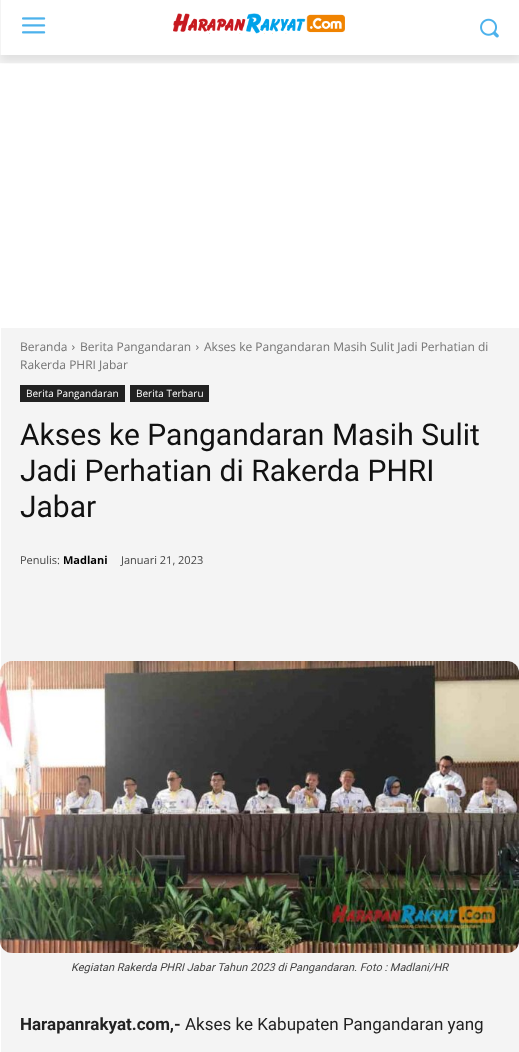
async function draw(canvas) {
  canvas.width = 519;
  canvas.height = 1052;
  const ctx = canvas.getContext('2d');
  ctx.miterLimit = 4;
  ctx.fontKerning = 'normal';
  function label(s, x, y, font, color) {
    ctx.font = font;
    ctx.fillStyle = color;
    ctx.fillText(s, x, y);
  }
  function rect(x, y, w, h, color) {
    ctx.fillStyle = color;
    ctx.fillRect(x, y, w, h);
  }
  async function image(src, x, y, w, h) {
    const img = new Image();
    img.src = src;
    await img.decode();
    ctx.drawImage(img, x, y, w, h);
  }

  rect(0, 0, 519, 1052, '#f4f4f4');
  rect(1, 0, 518, 55, '#fff');
  await image('assets/img1.png', 22, 17, 24, 17);
  await image('assets/img2.png', 173, 13, 172, 21);
  await image('assets/img3.png', 480, 18, 19, 20);
  rect(0, 63, 519, 989, '#fff');
  ctx.save();
  ctx.beginPath();
  ctx.rect(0, 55, 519, 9);
  ctx.clip();
  ctx.fillStyle = '#00000014';
  ctx.filter = 'blur(4px)';
  ctx.beginPath();
  ctx.rect(1, 6, 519, 55);
  ctx.fill();
  ctx.filter = 'none';
  ctx.restore();
  rect(1, 328, 518, 724, '#f4f4f4');
  label('Beranda', 20, 351, '12px Open Sans', '#747474');
  await image('assets/img4.png', 72, 345, 3, 5);
  label('Berita Pangandaran', 80, 351, '12px Open Sans', '#747474');
  await image('assets/img4.png', 196, 345, 3, 5);
  label('Akses ke Pangandaran Masih Sulit Jadi Perhatian di', 204, 351, '12px Open Sans', '#747474');
  label('Rakerda PHRI Jabar', 20, 369, '12px Open Sans', '#747474');
  rect(20, 385, 105, 17, '#222');
  label('Berita Pangandaran', 26, 397, '10px Open Sans', '#fff');
  rect(130, 385, 79, 17, '#222');
  label('Berita Terbaru', 136, 397, '10px Open Sans', '#fff');
  label('Akses ke Pangandaran Masih Sulit', 20, 445, '30px Roboto', '#111');
  label('Jadi Perhatian di Rakerda PHRI', 20, 481, '30px Roboto', '#111');
  label('Jabar', 20, 517, '30px Roboto', '#111');
  label('Penulis:', 20, 564, '11px Open Sans', '#444');
  label('Madlani', 63, 564, 'bold 11px Open Sans', '#000');
  label('Januari 21, 2023', 121, 564, '11px Open Sans', '#444');
  await image('assets/img5.png', 0, 661, 519, 292);
  label('Kegiatan Rakerda PHRI Jabar Tahun 2023 di Pangandaran. Foto : Madlani/HR', 71, 971, 'italic 11px Roboto', '#444');
  label('Harapanrakyat.com,-', 20, 1030, 'bold 17px Roboto', '#222');
  label('Akses ke Kabupaten Pangandaran yang', 185, 1030, '17px Roboto', '#222');
}

draw(document.querySelector('canvas'));
